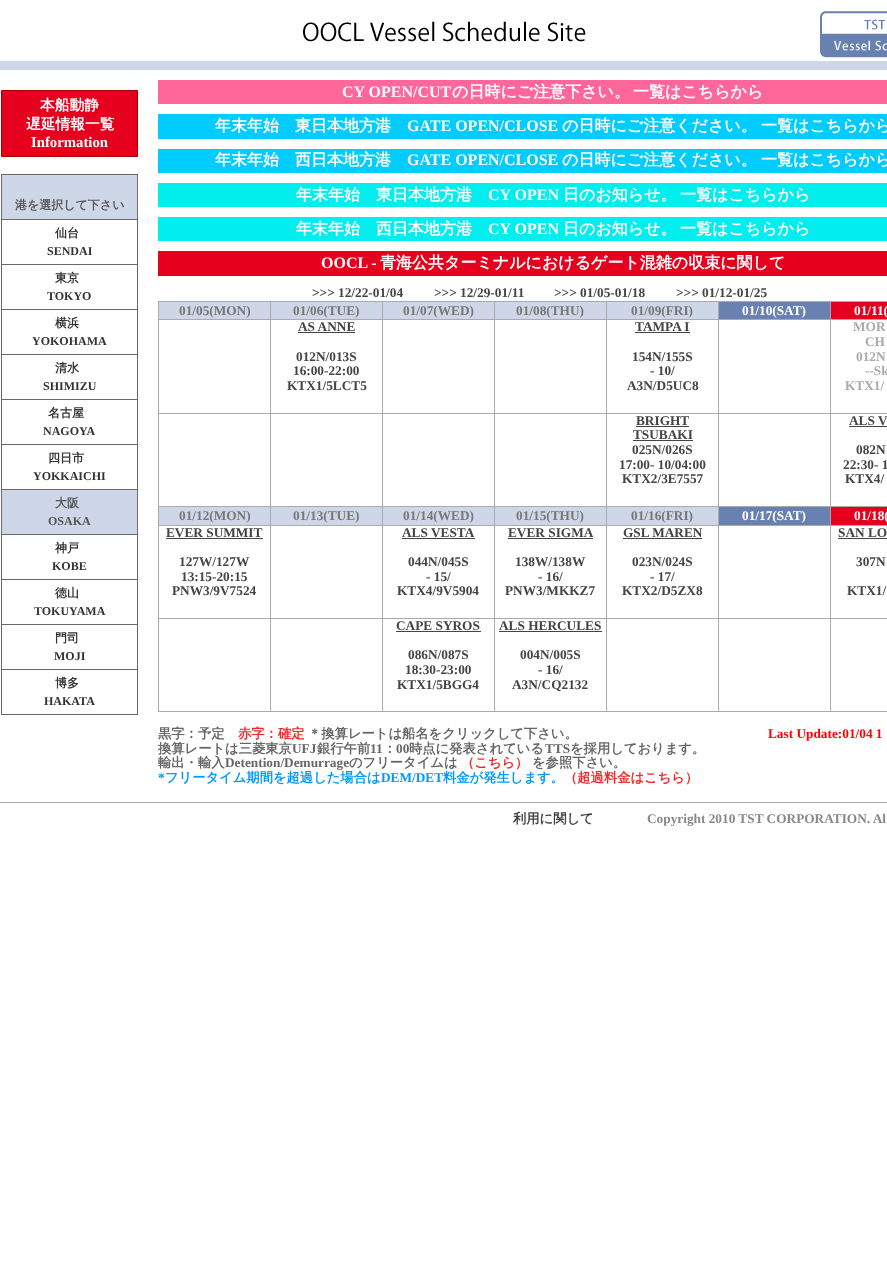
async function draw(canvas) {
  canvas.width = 887;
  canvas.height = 1261;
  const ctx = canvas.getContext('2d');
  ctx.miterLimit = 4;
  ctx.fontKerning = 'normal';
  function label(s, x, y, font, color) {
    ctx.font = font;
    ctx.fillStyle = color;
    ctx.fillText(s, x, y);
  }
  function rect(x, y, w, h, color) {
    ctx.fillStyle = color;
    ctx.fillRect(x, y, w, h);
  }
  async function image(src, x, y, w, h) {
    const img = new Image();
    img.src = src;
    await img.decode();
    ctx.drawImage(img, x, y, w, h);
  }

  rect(0, 0, 887, 1261, '#fff');
  await image('assets/img1.png', 0, 11, 887, 59);
  rect(1, 714, 137, 1, '#696969');
  ctx.fillStyle = '#e6001d';
  ctx.beginPath();
  ctx.rect(1.5, 90.5, 136, 66);
  ctx.fill();
  ctx.strokeStyle = '#a00';
  ctx.stroke();
  label('本船動静', 40, 110, 'bold 14.75px WenQuanYi Zen Hei', '#fff');
  label('遅延情報一覧', 26, 129, 'bold 14.75px WenQuanYi Zen Hei', '#fff');
  label('Information', 31, 147, 'bold 14.75px Liberation Serif', '#fff');
  rect(2, 175, 135, 44, '#ced7e8');
  rect(1, 174, 137, 1, '#696969');
  rect(137, 174, 1, 45, '#696969');
  rect(1, 174, 1, 45, '#696969');
  label('港を選択して下さい', 15, 209, 'bold 12px WenQuanYi Zen Hei', '#555');
  rect(1, 219, 137, 1, '#696969');
  rect(137, 219, 1, 45, '#696969');
  rect(1, 219, 1, 45, '#696969');
  label('仙台', 55, 237, 'bold 12px WenQuanYi Zen Hei', '#333');
  label('SENDAI', 47, 255, 'bold 12px Liberation Serif', '#333');
  rect(1, 264, 137, 1, '#696969');
  rect(137, 264, 1, 45, '#696969');
  rect(1, 264, 1, 45, '#696969');
  label('東京', 55, 282, 'bold 12px WenQuanYi Zen Hei', '#333');
  label('TOKYO', 47, 300, 'bold 12px Liberation Serif', '#333');
  rect(1, 309, 137, 1, '#696969');
  rect(137, 309, 1, 45, '#696969');
  rect(1, 309, 1, 45, '#696969');
  label('横浜', 55, 327, 'bold 12px WenQuanYi Zen Hei', '#333');
  label('YOKOHAMA', 32, 345, 'bold 12px Liberation Serif', '#333');
  rect(1, 354, 137, 1, '#696969');
  rect(137, 354, 1, 45, '#696969');
  rect(1, 354, 1, 45, '#696969');
  label('清水', 55, 372, 'bold 12px WenQuanYi Zen Hei', '#333');
  label('SHIMIZU', 43, 390, 'bold 12px Liberation Serif', '#333');
  rect(1, 399, 137, 1, '#696969');
  rect(137, 399, 1, 45, '#696969');
  rect(1, 399, 1, 45, '#696969');
  label('名古屋', 48, 417, 'bold 12px WenQuanYi Zen Hei', '#333');
  label('NAGOYA', 43, 435, 'bold 12px Liberation Serif', '#333');
  rect(1, 444, 137, 1, '#696969');
  rect(137, 444, 1, 45, '#696969');
  rect(1, 444, 1, 45, '#696969');
  label('四日市', 48, 462, 'bold 12px WenQuanYi Zen Hei', '#333');
  label('YOKKAICHI', 33, 480, 'bold 12px Liberation Serif', '#333');
  rect(2, 490, 135, 44, '#ced7e8');
  rect(1, 489, 137, 1, '#696969');
  rect(137, 489, 1, 45, '#696969');
  rect(1, 489, 1, 45, '#696969');
  label('大阪', 55, 507, 'bold 12px WenQuanYi Zen Hei', '#555');
  label('OSAKA', 48, 525, 'bold 12px Liberation Serif', '#555');
  rect(1, 534, 137, 1, '#696969');
  rect(137, 534, 1, 45, '#696969');
  rect(1, 534, 1, 45, '#696969');
  label('神戸', 55, 552, 'bold 12px WenQuanYi Zen Hei', '#333');
  label('KOBE', 52, 570, 'bold 12px Liberation Serif', '#333');
  rect(1, 579, 137, 1, '#696969');
  rect(137, 579, 1, 45, '#696969');
  rect(1, 579, 1, 45, '#696969');
  label('徳山', 55, 597, 'bold 12px WenQuanYi Zen Hei', '#333');
  label('TOKUYAMA', 34, 615, 'bold 12px Liberation Serif', '#333');
  rect(1, 624, 137, 1, '#696969');
  rect(137, 624, 1, 45, '#696969');
  rect(1, 624, 1, 45, '#696969');
  label('門司', 55, 642, 'bold 12px WenQuanYi Zen Hei', '#333');
  label('MOJI', 54, 660, 'bold 12px Liberation Serif', '#333');
  rect(1, 669, 137, 1, '#696969');
  rect(137, 669, 1, 45, '#696969');
  rect(1, 669, 1, 45, '#696969');
  label('博多', 55, 687, 'bold 12px WenQuanYi Zen Hei', '#333');
  label('HAKATA', 44, 705, 'bold 12px Liberation Serif', '#333');
  rect(158, 80, 729, 24, '#f69');
  label('CY OPEN/CUT', 342, 97, 'bold 16px Liberation Serif', '#fff');
  label('の日時にご注意下さい。', 452, 97, 'bold 16px WenQuanYi Zen Hei', '#fff');
  label('一覧はこちらから', 633, 97, 'bold 16px WenQuanYi Zen Hei', '#fff');
  rect(158, 114, 729, 25, '#0cf');
  label('年末年始　東日本地方港', 215, 131, 'bold 16px WenQuanYi Zen Hei', '#fff');
  label('GATE OPEN/CLOSE', 407, 131, 'bold 16px Liberation Serif', '#fff');
  label('の日時にご注意ください。', 562, 131, 'bold 16px WenQuanYi Zen Hei', '#fff');
  label('一覧はこちらから', 761, 131, 'bold 16px WenQuanYi Zen Hei', '#fff');
  rect(158, 149, 729, 24, '#0cf');
  label('年末年始　西日本地方港', 215, 165, 'bold 16px WenQuanYi Zen Hei', '#fff');
  label('GATE OPEN/CLOSE', 407, 165, 'bold 16px Liberation Serif', '#fff');
  label('の日時にご注意ください。', 562, 165, 'bold 16px WenQuanYi Zen Hei', '#fff');
  label('一覧はこちらから', 761, 165, 'bold 16px WenQuanYi Zen Hei', '#fff');
  rect(158, 183, 729, 24, '#0ee');
  label('年末年始　東日本地方港', 296, 200, 'bold 16px WenQuanYi Zen Hei', '#fff');
  label('CY OPEN', 488, 200, 'bold 16px Liberation Serif', '#fff');
  label('日のお知らせ。', 563, 200, 'bold 16px WenQuanYi Zen Hei', '#fff');
  label('一覧はこちらから', 680, 200, 'bold 16px WenQuanYi Zen Hei', '#fff');
  rect(158, 217, 729, 24, '#0ee');
  label('年末年始　西日本地方港', 296, 234, 'bold 16px WenQuanYi Zen Hei', '#fff');
  label('CY OPEN', 488, 234, 'bold 16px Liberation Serif', '#fff');
  label('日のお知らせ。', 563, 234, 'bold 16px WenQuanYi Zen Hei', '#fff');
  label('一覧はこちらから', 680, 234, 'bold 16px WenQuanYi Zen Hei', '#fff');
  rect(158, 251, 729, 25, '#e6001d');
  label('OOCL -', 321, 268, 'bold 16px Liberation Serif', '#fff');
  label('青海公共ターミナルにおけるゲート混雑の収束に関して', 380, 268, 'bold 16px WenQuanYi Zen Hei', '#fff');
  label('>>> 12/22-01/04', 312, 297, 'bold 13.3px Liberation Serif', '#444');
  label('>>> 12/29-01/11', 434, 297, 'bold 13.3px Liberation Serif', '#444');
  label('>>> 01/05-01/18', 554, 297, 'bold 13.3px Liberation Serif', '#444');
  label('>>> 01/12-01/25', 676, 297, 'bold 13.3px Liberation Serif', '#444');
  rect(158, 711, 729, 1, '#aaa');
  rect(159, 302, 559, 17, '#ced7e8');
  rect(158, 301, 729, 1, '#aaa');
  rect(158, 301, 1, 18, '#aaa');
  label('01/05(MON)', 179, 315, 'bold 13.3px Liberation Serif', '#777');
  rect(270, 301, 1, 18, '#aaa');
  label('01/06(TUE)', 293, 315, 'bold 13.3px Liberation Serif', '#777');
  rect(382, 301, 1, 18, '#aaa');
  label('01/07(WED)', 403, 315, 'bold 13.3px Liberation Serif', '#777');
  rect(494, 301, 1, 18, '#aaa');
  label('01/08(THU)', 516, 315, 'bold 13.3px Liberation Serif', '#777');
  rect(606, 301, 1, 18, '#aaa');
  label('01/09(FRI)', 631, 315, 'bold 13.3px Liberation Serif', '#777');
  rect(719, 302, 111, 17, '#6881b1');
  rect(718, 301, 1, 18, '#aaa');
  label('01/10(SAT)', 742, 315, 'bold 13.3px Liberation Serif', '#fff');
  rect(831, 302, 56, 17, '#e6001d');
  rect(830, 301, 1, 18, '#aaa');
  label('01/11(', 854, 315, 'bold 13.3px Liberation Serif', '#fff');
  rect(158, 319, 729, 1, '#aaa');
  rect(158, 319, 1, 94, '#aaa');
  rect(270, 319, 1, 94, '#aaa');
  label('AS ANNE', 298, 331, 'bold 13.3px Liberation Serif', '#444');
  rect(298, 332, 57, 1, '#444');
  label('012N/013S', 296, 361, 'bold 13.3px Liberation Serif', '#444');
  label('16:00-22:00', 293, 375, 'bold 13.3px Liberation Serif', '#444');
  label('KTX1/5LCT5', 287, 390, 'bold 13.3px Liberation Serif', '#444');
  rect(382, 319, 1, 94, '#aaa');
  rect(494, 319, 1, 94, '#aaa');
  rect(606, 319, 1, 94, '#aaa');
  label('TAMPA I', 635, 331, 'bold 13.3px Liberation Serif', '#444');
  rect(635, 332, 55, 1, '#444');
  label('154N/155S', 632, 361, 'bold 13.3px Liberation Serif', '#444');
  label('- 10/', 650, 375, 'bold 13.3px Liberation Serif', '#444');
  label('A3N/D5UC8', 627, 390, 'bold 13.3px Liberation Serif', '#444');
  rect(718, 319, 1, 94, '#aaa');
  rect(830, 319, 1, 94, '#aaa');
  label('MOR', 853, 331, 'bold 13.3px Liberation Serif', '#aaa');
  label('CH', 865, 346, 'bold 13.3px Liberation Serif', '#aaa');
  label('012N', 856, 361, 'bold 13.3px Liberation Serif', '#aaa');
  label('--Sk', 865, 375, 'bold 13.3px Liberation Serif', '#aaa');
  label('KTX1/', 845, 390, 'bold 13.3px Liberation Serif', '#aaa');
  rect(158, 413, 729, 1, '#aaa');
  rect(158, 413, 1, 93, '#aaa');
  rect(270, 413, 1, 93, '#aaa');
  rect(382, 413, 1, 93, '#aaa');
  rect(494, 413, 1, 93, '#aaa');
  rect(606, 413, 1, 93, '#aaa');
  label('BRIGHT', 636, 425, 'bold 13.3px Liberation Serif', '#444');
  rect(636, 426, 53, 1, '#444');
  label('TSUBAKI', 633, 439, 'bold 13.3px Liberation Serif', '#444');
  rect(633, 440, 60, 1, '#444');
  label('025N/026S', 632, 454, 'bold 13.3px Liberation Serif', '#444');
  label('17:00- 10/04:00', 619, 469, 'bold 13.3px Liberation Serif', '#444');
  label('KTX2/3E7557', 622, 483, 'bold 13.3px Liberation Serif', '#444');
  rect(718, 413, 1, 93, '#aaa');
  rect(830, 413, 1, 93, '#aaa');
  label('ALS V', 849, 425, 'bold 13.3px Liberation Serif', '#444');
  rect(849, 426, 38, 1, '#444');
  label('082N', 856, 454, 'bold 13.3px Liberation Serif', '#444');
  label('22:30- 1', 843, 469, 'bold 13.3px Liberation Serif', '#444');
  label('KTX4/', 845, 483, 'bold 13.3px Liberation Serif', '#444');
  rect(159, 507, 559, 18, '#ced7e8');
  rect(158, 506, 729, 1, '#aaa');
  rect(158, 506, 1, 19, '#aaa');
  label('01/12(MON)', 179, 520, 'bold 13.3px Liberation Serif', '#777');
  rect(270, 506, 1, 19, '#aaa');
  label('01/13(TUE)', 293, 520, 'bold 13.3px Liberation Serif', '#777');
  rect(382, 506, 1, 19, '#aaa');
  label('01/14(WED)', 403, 520, 'bold 13.3px Liberation Serif', '#777');
  rect(494, 506, 1, 19, '#aaa');
  label('01/15(THU)', 516, 520, 'bold 13.3px Liberation Serif', '#777');
  rect(606, 506, 1, 19, '#aaa');
  label('01/16(FRI)', 631, 520, 'bold 13.3px Liberation Serif', '#777');
  rect(719, 507, 111, 18, '#6881b1');
  rect(718, 506, 1, 19, '#aaa');
  label('01/17(SAT)', 742, 520, 'bold 13.3px Liberation Serif', '#fff');
  rect(831, 507, 56, 18, '#e6001d');
  rect(830, 506, 1, 19, '#aaa');
  label('01/18(', 854, 520, 'bold 13.3px Liberation Serif', '#fff');
  rect(158, 525, 729, 1, '#aaa');
  rect(158, 525, 1, 93, '#aaa');
  label('EVER SUMMIT', 166, 537, 'bold 13.3px Liberation Serif', '#444');
  rect(166, 538, 97, 1, '#444');
  label('127W/127W', 179, 566, 'bold 13.3px Liberation Serif', '#444');
  label('13:15-20:15', 181, 581, 'bold 13.3px Liberation Serif', '#444');
  label('PNW3/9V7524', 172, 595, 'bold 13.3px Liberation Serif', '#444');
  rect(270, 525, 1, 93, '#aaa');
  rect(382, 525, 1, 93, '#aaa');
  label('ALS VESTA', 402, 537, 'bold 13.3px Liberation Serif', '#444');
  rect(402, 538, 73, 1, '#444');
  label('044N/045S', 408, 566, 'bold 13.3px Liberation Serif', '#444');
  label('- 15/', 426, 581, 'bold 13.3px Liberation Serif', '#444');
  label('KTX4/9V5904', 397, 595, 'bold 13.3px Liberation Serif', '#444');
  rect(494, 525, 1, 93, '#aaa');
  label('EVER SIGMA', 508, 537, 'bold 13.3px Liberation Serif', '#444');
  rect(508, 538, 85, 1, '#444');
  label('138W/138W', 515, 566, 'bold 13.3px Liberation Serif', '#444');
  label('- 16/', 538, 581, 'bold 13.3px Liberation Serif', '#444');
  label('PNW3/MKKZ7', 505, 595, 'bold 13.3px Liberation Serif', '#444');
  rect(606, 525, 1, 93, '#aaa');
  label('GSL MAREN', 623, 537, 'bold 13.3px Liberation Serif', '#444');
  rect(623, 538, 79, 1, '#444');
  label('023N/024S', 632, 566, 'bold 13.3px Liberation Serif', '#444');
  label('- 17/', 650, 581, 'bold 13.3px Liberation Serif', '#444');
  label('KTX2/D5ZX8', 622, 595, 'bold 13.3px Liberation Serif', '#444');
  rect(718, 525, 1, 93, '#aaa');
  rect(830, 525, 1, 93, '#aaa');
  label('SAN LO', 838, 537, 'bold 13.3px Liberation Serif', '#444');
  rect(838, 538, 49, 1, '#444');
  label('307N', 856, 566, 'bold 13.3px Liberation Serif', '#444');
  label('KTX1/', 847, 595, 'bold 13.3px Liberation Serif', '#444');
  rect(158, 618, 729, 1, '#aaa');
  rect(158, 618, 1, 93, '#aaa');
  rect(270, 618, 1, 93, '#aaa');
  rect(382, 618, 1, 93, '#aaa');
  label('CAPE SYROS', 396, 630, 'bold 13.3px Liberation Serif', '#444');
  rect(396, 631, 85, 1, '#444');
  label('086N/087S', 408, 659, 'bold 13.3px Liberation Serif', '#444');
  label('18:30-23:00', 405, 674, 'bold 13.3px Liberation Serif', '#444');
  label('KTX1/5BGG4', 397, 689, 'bold 13.3px Liberation Serif', '#444');
  rect(494, 618, 1, 93, '#aaa');
  label('ALS HERCULES', 499, 630, 'bold 13.3px Liberation Serif', '#444');
  rect(499, 631, 103, 1, '#444');
  label('004N/005S', 520, 659, 'bold 13.3px Liberation Serif', '#444');
  label('- 16/', 538, 674, 'bold 13.3px Liberation Serif', '#444');
  label('A3N/CQ2132', 512, 689, 'bold 13.3px Liberation Serif', '#444');
  rect(606, 618, 1, 93, '#aaa');
  rect(718, 618, 1, 93, '#aaa');
  rect(830, 618, 1, 93, '#aaa');
  label('黒字：予定', 158, 738, 'bold 13.3px WenQuanYi Zen Hei', '#666');
  label('赤字：確定', 238, 738, 'bold 13.3px WenQuanYi Zen Hei', '#f52625');
  label('＊換算レートは船名をクリックして下さい。', 308, 738, 'bold 13.3px WenQuanYi Zen Hei', '#666');
  label('Last Update:01/04 1', 768, 738, 'bold 13.3px Liberation Serif', '#f00');
  label('換算レートは三菱東京', 158, 753, 'bold 13.3px WenQuanYi Zen Hei', '#666');
  label('UFJ', 292, 753, 'bold 13.3px Liberation Serif', '#666');
  label('銀行午前', 317, 753, 'bold 13.3px WenQuanYi Zen Hei', '#666');
  label('11', 370, 753, 'bold 13.3px Liberation Serif', '#666');
  label('：', 383, 753, 'bold 13.3px WenQuanYi Zen Hei', '#666');
  label('00', 396, 753, 'bold 13.3px Liberation Serif', '#666');
  label('時点に発表されている', 409, 753, 'bold 13.3px WenQuanYi Zen Hei', '#666');
  label('TTS', 545, 753, 'bold 13.3px Liberation Serif', '#666');
  label('を採用しております。', 570, 753, 'bold 13.3px WenQuanYi Zen Hei', '#666');
  label('輸出・輸入', 158, 767, 'bold 13.3px WenQuanYi Zen Hei', '#666');
  label('Detention/Demurrage', 225, 767, 'bold 13.3px Liberation Serif', '#666');
  label('のフリータイムは', 349, 767, 'bold 13.3px WenQuanYi Zen Hei', '#666');
  label('（こちら）', 461, 767, 'bold 13.3px WenQuanYi Zen Hei', '#f52625');
  label('を参照下さい。', 532, 767, 'bold 13.3px WenQuanYi Zen Hei', '#666');
  label('*', 158, 782, 'bold 13.3px Liberation Serif', '#09f');
  label('フリータイム期間を超過した場合は', 165, 782, 'bold 13.3px WenQuanYi Zen Hei', '#09f');
  label('DEM/DET', 381, 782, 'bold 13.3px Liberation Serif', '#09f');
  label('料金が発生します。', 443, 782, 'bold 13.3px WenQuanYi Zen Hei', '#09f');
  label('（超過料金はこちら）', 564, 782, 'bold 13.3px WenQuanYi Zen Hei', '#f52625');
  rect(0, 802, 887, 1, '#aaa');
  label('利用に関して', 513, 823, 'bold 13.3px WenQuanYi Zen Hei', '#444');
  label('Copyright 2010 TST CORPORATION. Al', 647, 823, 'bold 13.3px Liberation Serif', '#888');
}

draw(document.querySelector('canvas'));
